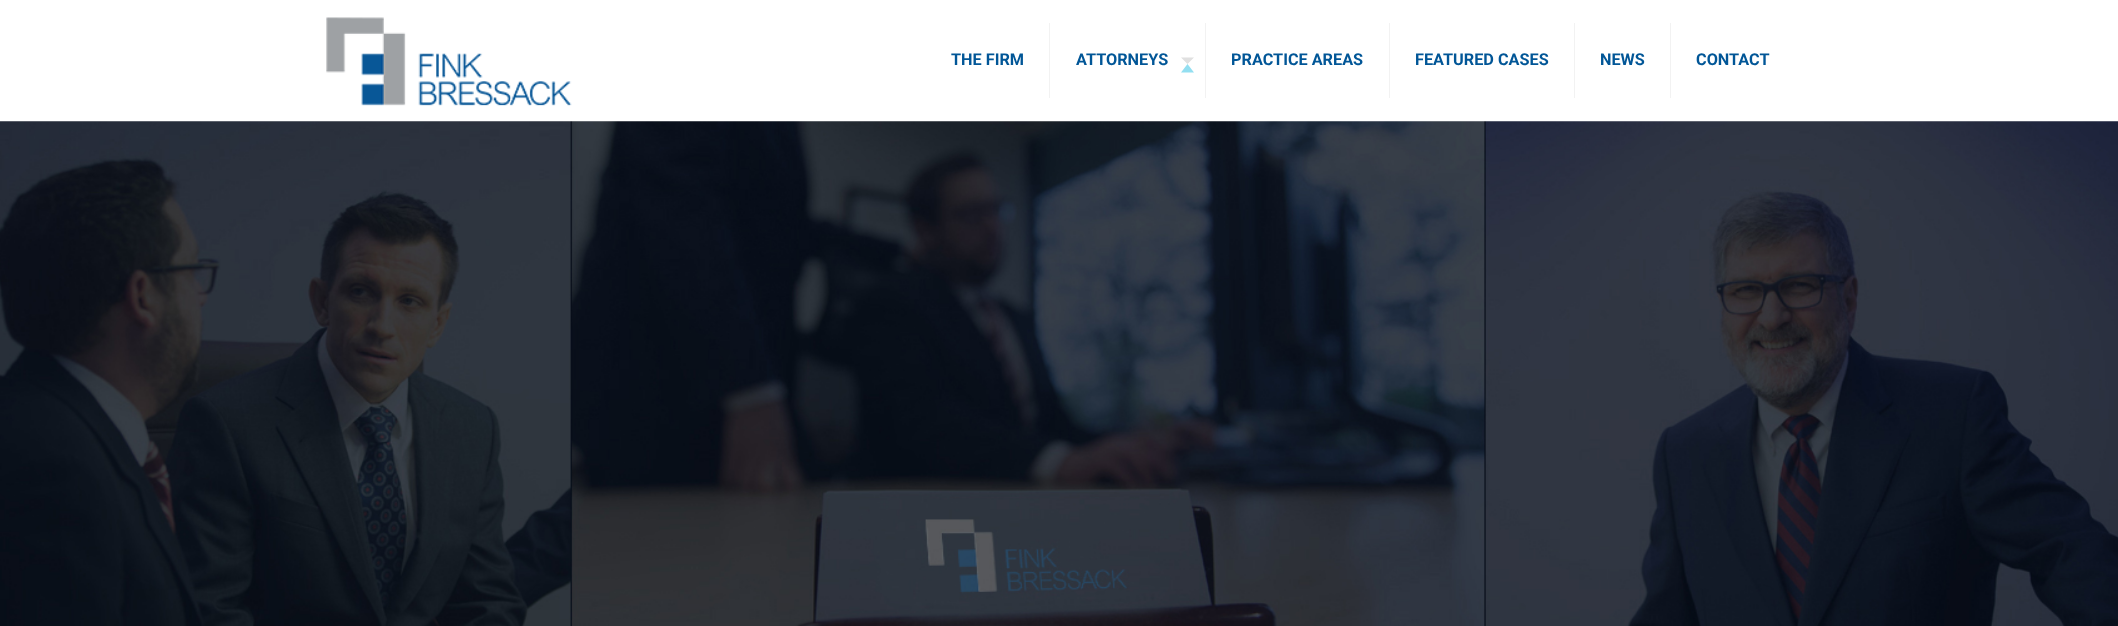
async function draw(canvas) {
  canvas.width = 2118;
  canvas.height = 626;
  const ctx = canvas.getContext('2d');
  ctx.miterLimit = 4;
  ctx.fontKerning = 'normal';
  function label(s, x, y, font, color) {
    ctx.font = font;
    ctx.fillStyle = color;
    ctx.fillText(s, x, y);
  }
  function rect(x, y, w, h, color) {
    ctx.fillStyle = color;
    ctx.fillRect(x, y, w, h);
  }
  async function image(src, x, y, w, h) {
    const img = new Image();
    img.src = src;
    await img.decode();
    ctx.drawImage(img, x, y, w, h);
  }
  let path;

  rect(0, 0, 2118, 626, '#fff');
  await image('assets/img1.png', 326, 17, 246, 89);
  rect(1049, 23, 1, 75, '#f2f2f2');
  label('THE FIRM', 951, 65, 'bold 16.25px Roboto', '#015697');
  rect(1205, 23, 1, 75, '#f2f2f2');
  label('ATTORNEYS', 1076, 65, 'bold 16.25px Roboto', '#015697');
  ctx.fillStyle = '#e0e0e0';
  path = new Path2D('M1181 57.5H1194L1187.5 64Z');
  ctx.fill(path);
  ctx.fillStyle = '#93dff1';
  path = new Path2D('M1194 72.5H1181L1187.5 64Z');
  ctx.fill(path);
  rect(1389, 23, 1, 75, '#f2f2f2');
  label('PRACTICE AREAS', 1231, 65, 'bold 16.25px Roboto', '#015697');
  rect(1574, 23, 1, 75, '#f2f2f2');
  label('FEATURED CASES', 1415, 65, 'bold 16.25px Roboto', '#015697');
  rect(1670, 23, 1, 75, '#f2f2f2');
  label('NEWS', 1600, 65, 'bold 16.25px Roboto', '#015697');
  label('CONTACT', 1696, 65, 'bold 16.25px Roboto', '#015697');
  await image('assets/img2.png', 0, 121, 2118, 505);
}

draw(document.querySelector('canvas'));
